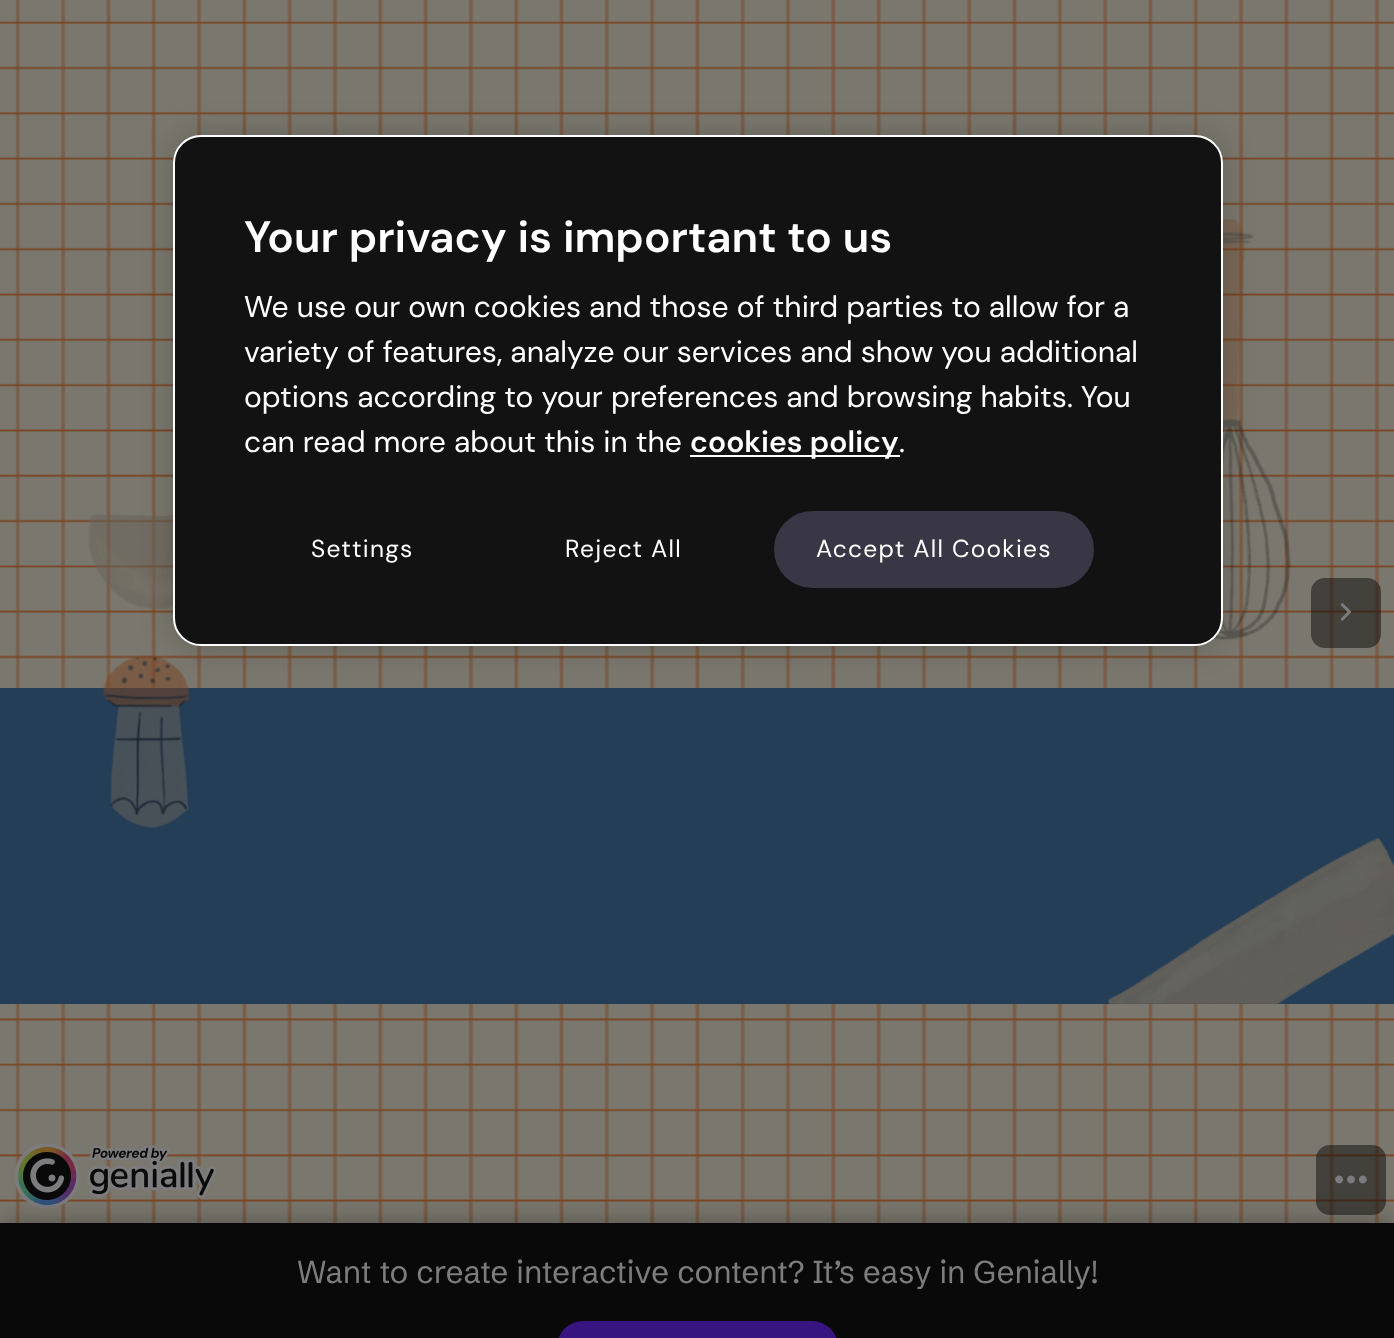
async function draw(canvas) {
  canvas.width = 1394;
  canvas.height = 1338;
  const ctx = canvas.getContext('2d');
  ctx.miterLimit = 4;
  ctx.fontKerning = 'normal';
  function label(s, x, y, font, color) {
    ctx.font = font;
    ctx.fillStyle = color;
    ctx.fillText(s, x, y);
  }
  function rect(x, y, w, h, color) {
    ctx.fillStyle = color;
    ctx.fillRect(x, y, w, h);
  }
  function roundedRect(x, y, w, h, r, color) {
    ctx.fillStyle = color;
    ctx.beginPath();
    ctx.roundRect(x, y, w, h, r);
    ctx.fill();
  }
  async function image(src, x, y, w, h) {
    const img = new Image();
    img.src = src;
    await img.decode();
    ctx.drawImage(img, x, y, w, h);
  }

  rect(0, 0, 1394, 1338, '#fff');
  await image('assets/img1.png', 0, 0, 1394, 1223);
  await image('assets/img2.png', 88, 513, 85, 96);
  await image('assets/img3.png', 1213, 219, 78, 421);
  rect(0, 688, 1394, 316, '#243e58');
  await image('assets/img4.png', 102, 655, 88, 174);
  ctx.fillStyle = '#00000033';
  ctx.filter = 'blur(16px)';
  ctx.beginPath();
  ctx.roundRect(173, 135, 1050, 511, 28);
  ctx.fill();
  ctx.filter = 'none';
  ctx.fillStyle = '#121212';
  ctx.beginPath();
  ctx.roundRect(174, 136, 1048, 509, 27);
  ctx.fill();
  ctx.strokeStyle = '#fff';
  ctx.lineWidth = 2;
  ctx.stroke();
  label('Your privacy is important to us', 244, 252, '600 44.1px DM Sans', '#fff');
  label('We use our own cookies and those of third parties to allow for a', 244, 317, '30.1px DM Sans', '#fff');
  label('variety of features, analyze our services and show you additional', 244, 362, '30.1px DM Sans', '#fff');
  label('options according to your preferences and browsing habits. You', 244, 407, '30.1px DM Sans', '#fff');
  label('can read more about this in the', 244, 452, '30.1px DM Sans', '#fff');
  rect(690, 455, 210, 2, '#fff');
  label('cookies policy', 690, 452, '600 30.1px DM Sans', '#fff');
  label('.', 899, 452, '30.1px DM Sans', '#fff');
  ctx.letterSpacing = '1.25px';
  label('Settings', 311, 557, '24.5px DM Sans', '#fff');
  label('Reject All', 565, 557, '24.5px DM Sans', '#fff');
  ctx.fillStyle = '#393645';
  ctx.beginPath();
  ctx.roundRect(773, 510, 322, 79, 39.5);
  ctx.fill();
  ctx.strokeStyle = '#121212';
  ctx.stroke();
  label('Accept All Cookies', 816, 557, '24.5px DM Sans', '#fff');
  await image('assets/img5.png', 1107, 837, 287, 167);
  await image('assets/img6.png', 14, 1143, 203, 66);
  roundedRect(1311, 578, 70, 70, 14, '#09090980');
  await image('assets/img7.png', 1340, 603, 11, 18);
  roundedRect(1316, 1145, 70, 70, 14, '#09090980');
  await image('assets/img8.png', 1335, 1175, 32, 9);
  ctx.fillStyle = '#0909094d';
  ctx.filter = 'blur(11.5px)';
  ctx.beginPath();
  ctx.rect(0, 1220, 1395, 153);
  ctx.fill();
  ctx.filter = 'none';
  rect(0, 1223, 1394, 115, '#090909');
  ctx.letterSpacing = '0px';
  label('Want to create interactive content? It’s easy in Genially!', 297, 1283, '31.5px Schibsted Grotesk', '#7d7c7e');
  roundedRect(557, 1321, 281, 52, 35, '#361580');
}

draw(document.querySelector('canvas'));
